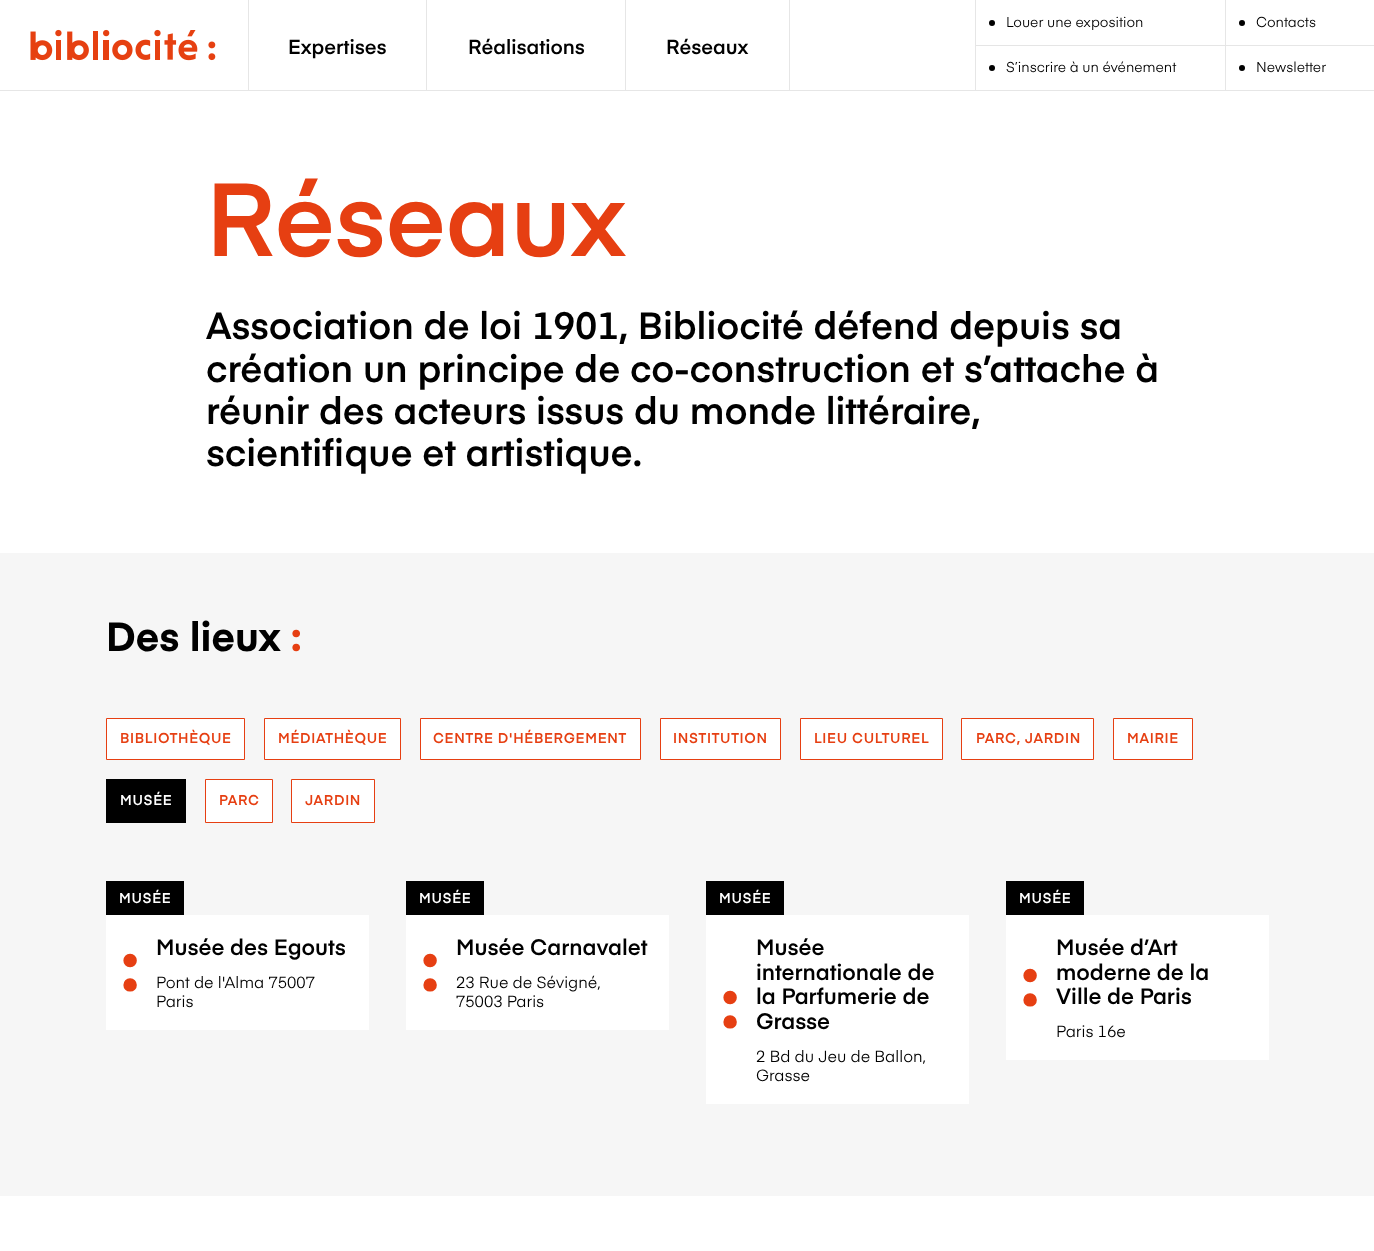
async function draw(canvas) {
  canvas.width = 1374;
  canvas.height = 1251;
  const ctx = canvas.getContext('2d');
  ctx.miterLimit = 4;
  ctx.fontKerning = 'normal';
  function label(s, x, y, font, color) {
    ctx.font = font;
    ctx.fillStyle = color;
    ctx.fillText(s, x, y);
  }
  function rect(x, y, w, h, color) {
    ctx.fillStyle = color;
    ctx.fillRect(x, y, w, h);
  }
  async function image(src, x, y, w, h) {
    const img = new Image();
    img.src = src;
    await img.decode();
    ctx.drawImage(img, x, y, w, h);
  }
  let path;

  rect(0, 0, 1374, 1251, '#fff');
  rect(0, 90, 1374, 1, '#e6e6e6');
  await image('assets/img1.png', 30, 29, 186, 32);
  rect(248, 0, 1, 90, '#e6e6e6');
  label('Expertises', 288, 54, '600 20px "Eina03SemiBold"', '#000');
  rect(426, 0, 1, 90, '#e6e6e6');
  label('Réalisations', 468, 54, '600 20px "Eina03SemiBold"', '#000');
  rect(789, 0, 1, 90, '#e6e6e6');
  rect(625, 0, 1, 90, '#e6e6e6');
  label('Réseaux', 666, 54, '600 20px "Eina03SemiBold"', '#000');
  rect(975, 0, 1, 90, '#e6e6e6');
  path = new Path2D('M1226 0V46L1225 45V0Z');
  ctx.fill(path);
  ctx.fillStyle = '#0000001a';
  path = new Path2D('M1226 46H976V45H1225Z');
  ctx.fill(path);
  ctx.fillStyle = '#000';
  ctx.beginPath();
  ctx.arc(992, 23, 3, 0, 2 * Math.PI);
  ctx.fill();
  label('Louer une exposition', 1006, 27, '14px "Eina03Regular"', '#000');
  rect(1226, 45, 148, 1, '#e6e6e6');
  ctx.fillStyle = '#000';
  ctx.beginPath();
  ctx.arc(1242, 23, 3, 0, 2 * Math.PI);
  ctx.fill();
  label('Contacts', 1256, 27, '14px "Eina03Regular"', '#000');
  rect(1225, 46, 1, 44, '#e6e6e6');
  ctx.fillStyle = '#000';
  ctx.beginPath();
  ctx.arc(992, 68, 3, 0, 2 * Math.PI);
  ctx.fill();
  label('S’inscrire à un événement', 1006, 72, '14px "Eina03Regular"', '#000');
  ctx.beginPath();
  ctx.arc(1242, 68, 3, 0, 2 * Math.PI);
  ctx.fill();
  label('Newsletter', 1256, 72, '14px "Eina03Regular"', '#000');
  label('Réseaux', 206, 256, '600 102px "Eina03SemiBold"', '#e63f12');
  label('Association de loi 1901, Bibliocité défend depuis sa', 206, 339, '600 37.5px "Eina03SemiBold"', '#000');
  label('création un principe de co-construction et s’attache à', 206, 382, '600 37.5px "Eina03SemiBold"', '#000');
  label('réunir des acteurs issus du monde littéraire,', 206, 424, '600 37.5px "Eina03SemiBold"', '#000');
  label('scientifique et artistique.', 206, 466, '600 37.5px "Eina03SemiBold"', '#000');
  rect(0, 553, 1374, 643, '#f6f6f6');
  label('Des lieux', 106, 651, 'bold 40px "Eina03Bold"', '#000');
  label(':', 291, 651, 'bold 40px "Eina03Bold"', '#e63f12');
  ctx.fillStyle = '#fff';
  ctx.beginPath();
  ctx.rect(106.5, 718.5, 138, 41);
  ctx.fill();
  ctx.strokeStyle = '#e63f12';
  ctx.stroke();
  ctx.letterSpacing = '0.7px';
  label('BIBLIOTHÈQUE', 120, 743, '600 14px "Eina03SemiBold"', '#e63f12');
  ctx.fillStyle = '#fff';
  ctx.beginPath();
  ctx.rect(264.5, 718.5, 136, 41);
  ctx.fill();
  ctx.stroke();
  label('MÉDIATHÈQUE', 278, 743, '600 14px "Eina03SemiBold"', '#e63f12');
  ctx.fillStyle = '#fff';
  ctx.beginPath();
  ctx.rect(420.5, 718.5, 220, 41);
  ctx.fill();
  ctx.stroke();
  label('CENTRE D\'HÉBERGEMENT', 433, 743, '600 14px "Eina03SemiBold"', '#e63f12');
  ctx.fillStyle = '#fff';
  ctx.beginPath();
  ctx.rect(660.5, 718.5, 120, 41);
  ctx.fill();
  ctx.stroke();
  label('INSTITUTION', 673, 743, '600 14px "Eina03SemiBold"', '#e63f12');
  ctx.fillStyle = '#fff';
  ctx.beginPath();
  ctx.rect(800.5, 718.5, 142, 41);
  ctx.fill();
  ctx.stroke();
  label('LIEU CULTUREL', 814, 743, '600 14px "Eina03SemiBold"', '#e63f12');
  ctx.fillStyle = '#fff';
  ctx.beginPath();
  ctx.rect(961.5, 718.5, 132, 41);
  ctx.fill();
  ctx.stroke();
  label('PARC, JARDIN', 976, 743, '600 14px "Eina03SemiBold"', '#e63f12');
  ctx.fillStyle = '#fff';
  ctx.beginPath();
  ctx.rect(1113.5, 718.5, 79, 41);
  ctx.fill();
  ctx.stroke();
  label('MAIRIE', 1127, 743, '600 14px "Eina03SemiBold"', '#e63f12');
  rect(106, 779, 80, 44, '#000');
  label('MUSÉE', 120, 805, '600 14px "Eina03SemiBold"', '#fff');
  ctx.beginPath();
  ctx.rect(205.5, 779.5, 67, 43);
  ctx.fill();
  ctx.stroke();
  label('PARC', 219, 805, '600 14px "Eina03SemiBold"', '#e63f12');
  ctx.fillStyle = '#fff';
  ctx.beginPath();
  ctx.rect(291.5, 779.5, 83, 43);
  ctx.fill();
  ctx.stroke();
  label('JARDIN', 305, 805, '600 14px "Eina03SemiBold"', '#e63f12');
  rect(106, 881, 78, 34, '#000');
  label('MUSÉE', 119, 903, '600 14px "Eina03SemiBold"', '#fff');
  rect(106, 915, 263, 115, '#fff');
  ctx.letterSpacing = '0px';
  label('Musée des Egouts', 156, 955, '600 22px "Eina03SemiBold"', '#000');
  label(':', 121, 991, 'bold 70px "Eina03Bold"', '#e63f12');
  label('Pont de l\'Alma 75007', 156, 988, '16px "Eina03Regular"', '#000');
  label('Paris', 156, 1007, '16px "Eina03Regular"', '#000');
  rect(406, 881, 78, 34, '#000');
  ctx.letterSpacing = '0.7px';
  label('MUSÉE', 419, 903, '600 14px "Eina03SemiBold"', '#fff');
  rect(406, 915, 263, 115, '#fff');
  ctx.letterSpacing = '0px';
  label('Musée Carnavalet', 456, 955, '600 22px "Eina03SemiBold"', '#000');
  label(':', 421, 991, 'bold 70px "Eina03Bold"', '#e63f12');
  label('23 Rue de Sévigné,', 456, 988, '16px "Eina03Regular"', '#000');
  label('75003 Paris', 456, 1007, '16px "Eina03Regular"', '#000');
  rect(706, 881, 78, 34, '#000');
  ctx.letterSpacing = '0.7px';
  label('MUSÉE', 719, 903, '600 14px "Eina03SemiBold"', '#fff');
  rect(706, 915, 263, 189, '#fff');
  ctx.letterSpacing = '0px';
  label(':', 721, 1028, 'bold 70px "Eina03Bold"', '#e63f12');
  label('Musée', 756, 955, '600 22px "Eina03SemiBold"', '#000');
  label('internationale de', 756, 980, '600 22px "Eina03SemiBold"', '#000');
  label('la Parfumerie de', 756, 1004, '600 22px "Eina03SemiBold"', '#000');
  label('Grasse', 756, 1029, '600 22px "Eina03SemiBold"', '#000');
  label('2 Bd du Jeu de Ballon,', 756, 1062, '16px "Eina03Regular"', '#000');
  label('Grasse', 756, 1081, '16px "Eina03Regular"', '#000');
  rect(1006, 881, 78, 34, '#000');
  ctx.letterSpacing = '0.7px';
  label('MUSÉE', 1019, 903, '600 14px "Eina03SemiBold"', '#fff');
  rect(1006, 915, 263, 145, '#fff');
  ctx.letterSpacing = '0px';
  label(':', 1021, 1006, 'bold 70px "Eina03Bold"', '#e63f12');
  label('Musée d’Art', 1056, 955, '600 22px "Eina03SemiBold"', '#000');
  label('moderne de la', 1056, 980, '600 22px "Eina03SemiBold"', '#000');
  label('Ville de Paris', 1056, 1004, '600 22px "Eina03SemiBold"', '#000');
  label('Paris 16e', 1056, 1037, '16px "Eina03Regular"', '#000');
}

draw(document.querySelector('canvas'));
